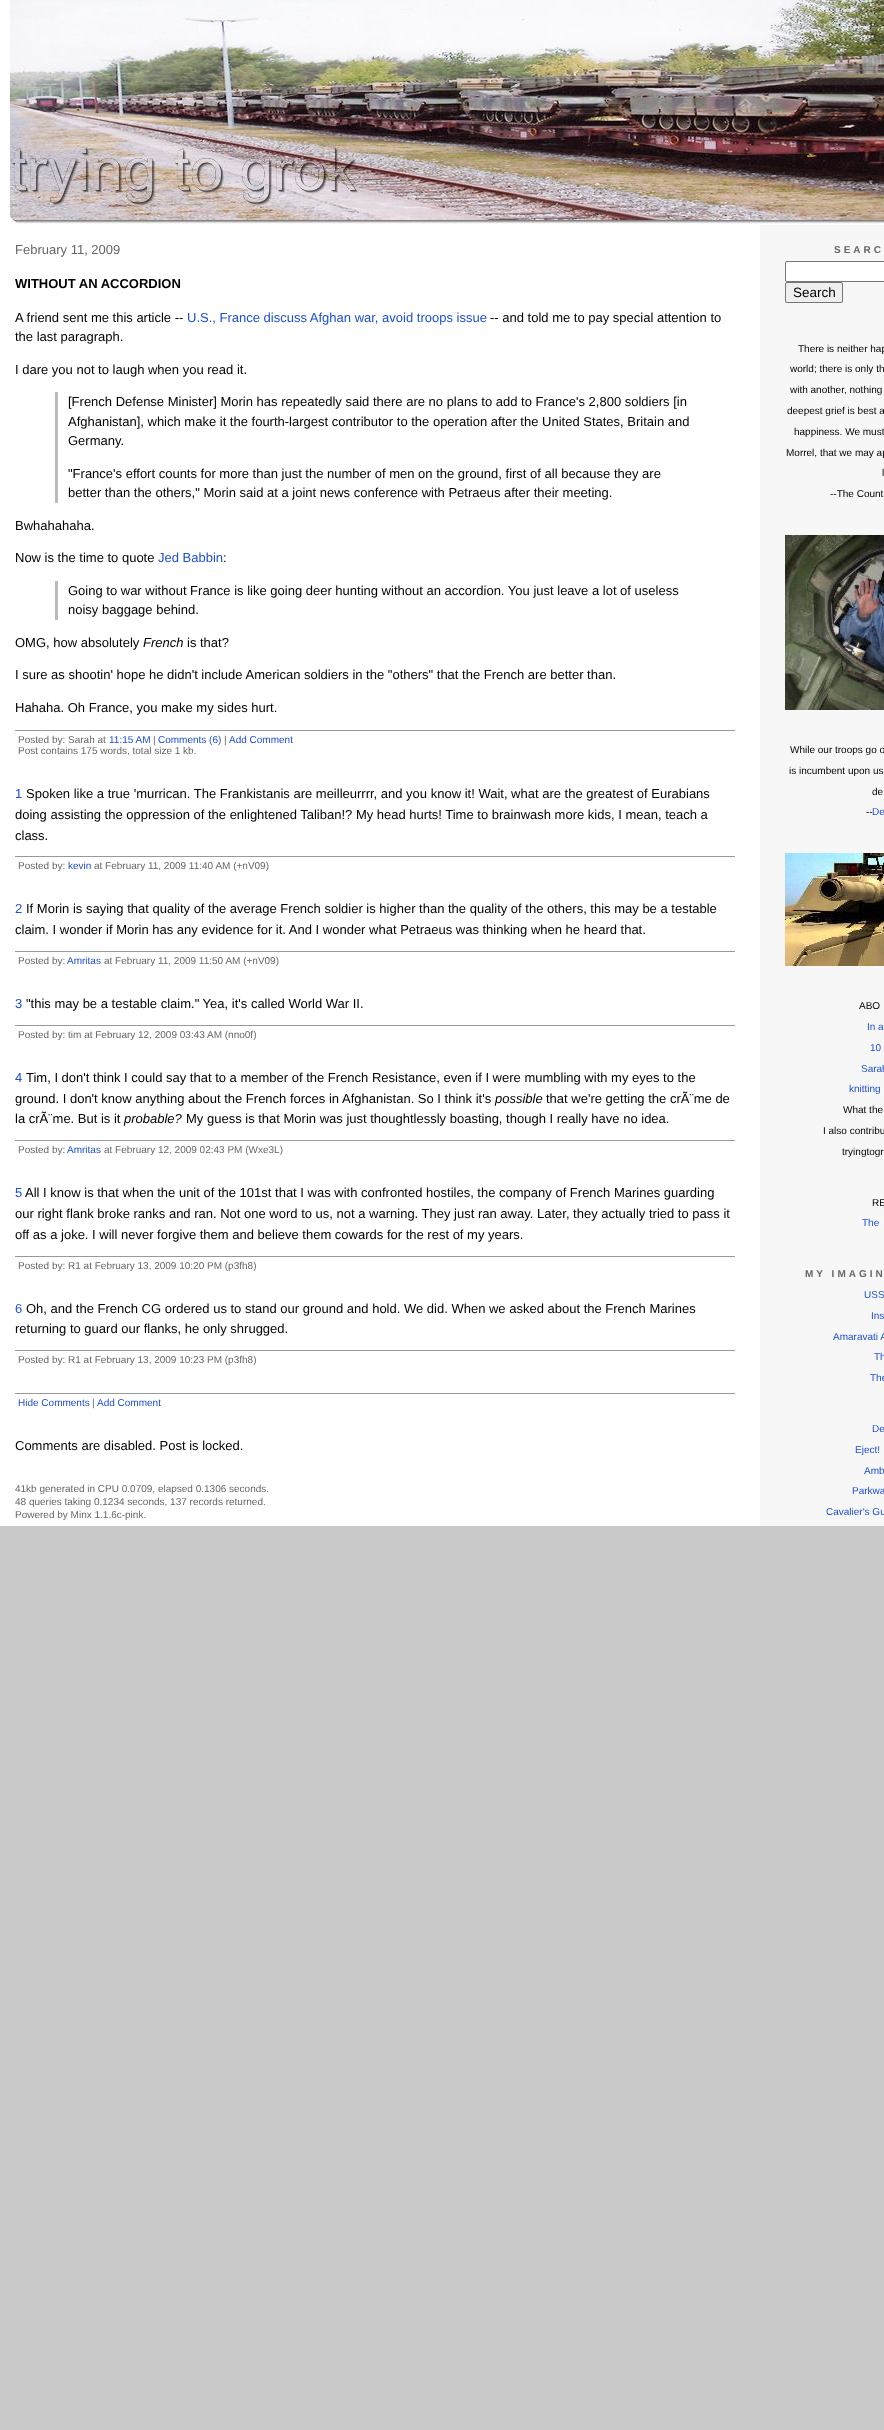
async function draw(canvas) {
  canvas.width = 884;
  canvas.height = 2430;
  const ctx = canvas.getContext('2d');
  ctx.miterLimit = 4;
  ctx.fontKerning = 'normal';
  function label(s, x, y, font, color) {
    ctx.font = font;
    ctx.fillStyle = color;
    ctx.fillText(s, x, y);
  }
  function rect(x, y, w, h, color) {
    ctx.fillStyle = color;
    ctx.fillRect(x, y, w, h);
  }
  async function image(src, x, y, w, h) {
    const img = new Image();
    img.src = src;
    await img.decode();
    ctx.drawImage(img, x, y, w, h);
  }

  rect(0, 0, 884, 2430, '#c9c9c9');
  rect(0, 0, 884, 1526, '#fff');
  await image('assets/img1.png', 10, 0, 874, 60);
  await image('assets/img2.png', 10, 60, 874, 25);
  await image('assets/img3.png', 10, 85, 874, 110);
  await image('assets/img4.png', 10, 195, 874, 29);
  label('February 11, 2009', 15, 254, '13px Liberation Sans', '#666');
  label('WITHOUT AN ACCORDION', 15, 288, 'bold 13px Liberation Sans', '#000');
  label('A friend sent me this article --', 15, 322, '13px Liberation Sans', '#000');
  label('U.S., France discuss Afghan war, avoid troops issue', 187, 322, '13px Liberation Sans', '#1d4ed3');
  label('-- and told me to pay special attention to', 490, 322, '13px Liberation Sans', '#000');
  label('the last paragraph.', 15, 341, '13px Liberation Sans', '#000');
  label('I dare you not to laugh when you read it.', 15, 374, '13px Liberation Sans', '#000');
  rect(55, 392, 3, 111, '#bbb');
  label('[French Defense Minister] Morin has repeatedly said there are no plans to add to France\'s 2,800 soldiers [in', 68, 406, '13px Liberation Sans', '#000');
  label('Afghanistan], which make it the fourth-largest contributor to the operation after the United States, Britain and', 68, 426, '13px Liberation Sans', '#000');
  label('Germany.', 68, 445, '13px Liberation Sans', '#000');
  label('"France\'s effort counts for more than just the number of men on the ground, first of all because they are', 68, 478, '13px Liberation Sans', '#000');
  label('better than the others," Morin said at a joint news conference with Petraeus after their meeting.', 68, 497, '13px Liberation Sans', '#000');
  label('Bwhahahaha.', 15, 530, '13px Liberation Sans', '#000');
  label('Now is the time to quote', 15, 562, '13px Liberation Sans', '#000');
  label('Jed Babbin', 158, 562, '13px Liberation Sans', '#1d4ed3');
  label(':', 223, 562, '13px Liberation Sans', '#000');
  rect(55, 581, 3, 39, '#bbb');
  label('Going to war without France is like going deer hunting without an accordion. You just leave a lot of useless', 68, 595, '13px Liberation Sans', '#000');
  label('noisy baggage behind.', 68, 614, '13px Liberation Sans', '#000');
  label('OMG, how absolutely', 15, 647, '13px Liberation Sans', '#000');
  label('French', 143, 647, 'italic 13px Liberation Sans', '#000');
  label('is that?', 187, 647, '13px Liberation Sans', '#000');
  label('I sure as shootin\' hope he didn\'t include American soldiers in the "others" that the French are better than.', 15, 679, '13px Liberation Sans', '#000');
  label('Hahaha. Oh France, you make my sides hurt.', 15, 712, '13px Liberation Sans', '#000');
  rect(15, 730, 720, 1, '#999');
  label('Posted by: Sarah at', 18, 743, '10px Liberation Sans', '#666');
  label('11:15 AM', 109, 743, '10px Liberation Sans', '#1d4ed3');
  label('|', 153, 743, '10px Liberation Sans', '#666');
  label('Comments (6)', 158, 743, '10px Liberation Sans', '#1d4ed3');
  label('|', 224, 743, '10px Liberation Sans', '#666');
  label('Add Comment', 229, 743, '10px Liberation Sans', '#1d4ed3');
  label('Post contains 175 words, total size 1 kb.', 18, 754, '10px Liberation Sans', '#666');
  label('1', 15, 798, '13px Liberation Sans', '#1d4ed3');
  label('Spoken like a true \'murrican. The Frankistanis are meilleurrrr, and you know it! Wait, what are the greatest of Eurabians', 26, 798, '13px Liberation Sans', '#000');
  label('doing assisting the oppression of the enlightened Taliban!? My head hurts! Time to brainwash more kids, I mean, teach a', 15, 819, '13px Liberation Sans', '#000');
  label('class.', 15, 840, '13px Liberation Sans', '#000');
  rect(15, 856, 720, 1, '#999');
  label('Posted by:', 18, 869, '10px Liberation Sans', '#666');
  label('kevin', 68, 869, '10px Liberation Sans', '#1d4ed3');
  label('at February 11, 2009 11:40 AM (+nV09)', 94, 869, '10px Liberation Sans', '#666');
  label('2', 15, 913, '13px Liberation Sans', '#1d4ed3');
  label('If Morin is saying that quality of the average French soldier is higher than the quality of the others, this may be a testable', 26, 913, '13px Liberation Sans', '#000');
  label('claim. I wonder if Morin has any evidence for it. And I wonder what Petraeus was thinking when he heard that.', 15, 934, '13px Liberation Sans', '#000');
  rect(15, 951, 720, 1, '#999');
  label('Posted by:', 18, 964, '10px Liberation Sans', '#666');
  label('Amritas', 67, 964, '10px Liberation Sans', '#1d4ed3');
  label('at February 11, 2009 11:50 AM (+nV09)', 104, 964, '10px Liberation Sans', '#666');
  label('3', 15, 1008, '13px Liberation Sans', '#1d4ed3');
  label('"this may be a testable claim." Yea, it\'s called World War II.', 26, 1008, '13px Liberation Sans', '#000');
  rect(15, 1025, 720, 1, '#999');
  label('Posted by: tim at February 12, 2009 03:43 AM (nno0f)', 18, 1038, '10px Liberation Sans', '#666');
  label('4', 15, 1082, '13px Liberation Sans', '#1d4ed3');
  label('Tim, I don\'t think I could say that to a member of the French Resistance, even if I were mumbling with my eyes to the', 26, 1082, '13px Liberation Sans', '#000');
  label('ground. I don\'t know anything about the French forces in Afghanistan. So I think it\'s', 15, 1103, '13px Liberation Sans', '#000');
  label('possible', 495, 1103, 'italic 13px Liberation Sans', '#000');
  label('that we\'re getting the crÃ¨me de', 546, 1103, '13px Liberation Sans', '#000');
  label('la crÃ¨me. But is it', 15, 1123, '13px Liberation Sans', '#000');
  label('probable?', 124, 1123, 'italic 13px Liberation Sans', '#000');
  label('My guess is that Morin was just thoughtlessly boasting, though I really have no idea.', 186, 1123, '13px Liberation Sans', '#000');
  rect(15, 1140, 720, 1, '#999');
  label('Posted by:', 18, 1153, '10px Liberation Sans', '#666');
  label('Amritas', 67, 1153, '10px Liberation Sans', '#1d4ed3');
  label('at February 12, 2009 02:43 PM (Wxe3L)', 104, 1153, '10px Liberation Sans', '#666');
  label('5', 15, 1197, '13px Liberation Sans', '#1d4ed3');
  label('All I know is that when the unit of the 101st that I was with confronted hostiles, the company of French Marines guarding', 25, 1197, '13px Liberation Sans', '#000');
  label('our right flank broke ranks and ran. Not one word to us, not a warning. They just ran away. Later, they actually tried to pass it', 15, 1218, '13px Liberation Sans', '#000');
  label('off as a joke. I will never forgive them and believe them cowards for the rest of my years.', 15, 1239, '13px Liberation Sans', '#000');
  rect(15, 1256, 720, 1, '#999');
  label('Posted by: R1 at February 13, 2009 10:20 PM (p3fh8)', 18, 1269, '10px Liberation Sans', '#666');
  label('6', 15, 1313, '13px Liberation Sans', '#1d4ed3');
  label('Oh, and the French CG ordered us to stand our ground and hold. We did. When we asked about the French Marines', 26, 1313, '13px Liberation Sans', '#000');
  label('returning to guard our flanks, he only shrugged.', 15, 1333, '13px Liberation Sans', '#000');
  rect(15, 1350, 720, 1, '#999');
  label('Posted by: R1 at February 13, 2009 10:23 PM (p3fh8)', 18, 1363, '10px Liberation Sans', '#666');
  rect(15, 1393, 720, 1, '#999');
  label('Hide Comments', 18, 1406, '10px Liberation Sans', '#1d4ed3');
  label('|', 92, 1406, '10px Liberation Sans', '#666');
  label('Add Comment', 97, 1406, '10px Liberation Sans', '#1d4ed3');
  label('Comments are disabled. Post is locked.', 15, 1450, '13px Liberation Sans', '#000');
  label('41kb generated in CPU 0.0709, elapsed 0.1306 seconds.', 15, 1492, '10px Liberation Sans', '#666');
  label('48 queries taking 0.1234 seconds, 137 records returned.', 15, 1505, '10px Liberation Sans', '#666');
  label('Powered by Minx 1.1.6c-pink.', 15, 1518, '10px Liberation Sans', '#666');
  rect(760, 225, 124, 1301, '#f7f7f7');
  ctx.letterSpacing = '3px';
  label('SEARC', 834, 253, 'bold 10px Liberation Sans', '#666');
  ctx.fillStyle = '#fff';
  ctx.beginPath();
  ctx.roundRect(785.5, 261.5, 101, 20, 1.5);
  ctx.fill();
  ctx.strokeStyle = '#767676';
  ctx.stroke();
  ctx.fillStyle = '#efefef';
  ctx.beginPath();
  ctx.roundRect(785.5, 282.5, 57, 20, 1.5);
  ctx.fill();
  ctx.stroke();
  ctx.letterSpacing = '0px';
  label('Search', 793, 297, '13.5px Liberation Sans', '#000');
  label('There is neither hap', 798, 352, '10px Liberation Sans', '#000');
  label('world; there is only th', 790, 372, '10px Liberation Sans', '#000');
  label('with another, nothing', 790, 393, '10px Liberation Sans', '#000');
  label('deepest grief is best a', 787, 414, '10px Liberation Sans', '#000');
  label('happiness. We must', 794, 435, '10px Liberation Sans', '#000');
  label('Morrel, that we may ap', 786, 456, '10px Liberation Sans', '#000');
  label('l', 882, 476, '10px Liberation Sans', '#000');
  label('--The Count', 830, 497, '10px Liberation Sans', '#000');
  await image('assets/img5.png', 785, 535, 99, 175);
  label('While our troops go o', 790, 753, '10px Liberation Sans', '#000');
  label('is incumbent upon us', 789, 774, '10px Liberation Sans', '#000');
  label('de', 872, 795, '10px Liberation Sans', '#000');
  label('--', 866, 815, '10px Liberation Sans', '#000');
  label('De', 872, 815, '10px Liberation Sans', '#1d4ed3');
  await image('assets/img6.png', 785, 853, 99, 113);
  label('ABO', 859, 1009, '10px Liberation Sans', '#000');
  label('In a', 867, 1030, '10px Liberation Sans', '#1d4ed3');
  label('10', 870, 1051, '10px Liberation Sans', '#1d4ed3');
  label('Sarah', 861, 1072, '10px Liberation Sans', '#1d4ed3');
  label('knitting', 849, 1092, '10px Liberation Sans', '#1d4ed3');
  label('What the', 843, 1113, '10px Liberation Sans', '#000');
  label('I also contribu', 823, 1134, '10px Liberation Sans', '#000');
  label('tryingtogr', 842, 1155, '10px Liberation Sans', '#000');
  label('RE', 872, 1206, '10px Liberation Sans', '#000');
  label('The', 862, 1226, '10px Liberation Sans', '#1d4ed3');
  ctx.letterSpacing = '3px';
  label('MY IMAGIN', 805, 1277, 'bold 10px Liberation Sans', '#666');
  ctx.letterSpacing = '0px';
  label('USS', 864, 1298, '10px Liberation Sans', '#1d4ed3');
  label('Ins', 871, 1319, '10px Liberation Sans', '#1d4ed3');
  label('Amaravati A', 833, 1340, '10px Liberation Sans', '#1d4ed3');
  label('Th', 874, 1360, '10px Liberation Sans', '#1d4ed3');
  label('The', 870, 1381, '10px Liberation Sans', '#1d4ed3');
  label('De', 872, 1432, '10px Liberation Sans', '#1d4ed3');
  label('Eject!', 855, 1453, '10px Liberation Sans', '#1d4ed3');
  label('Amb', 864, 1474, '10px Liberation Sans', '#1d4ed3');
  label('Parkwa', 852, 1494, '10px Liberation Sans', '#1d4ed3');
  label('Cavalier\'s Gu', 826, 1515, '10px Liberation Sans', '#1d4ed3');
}

draw(document.querySelector('canvas'));
